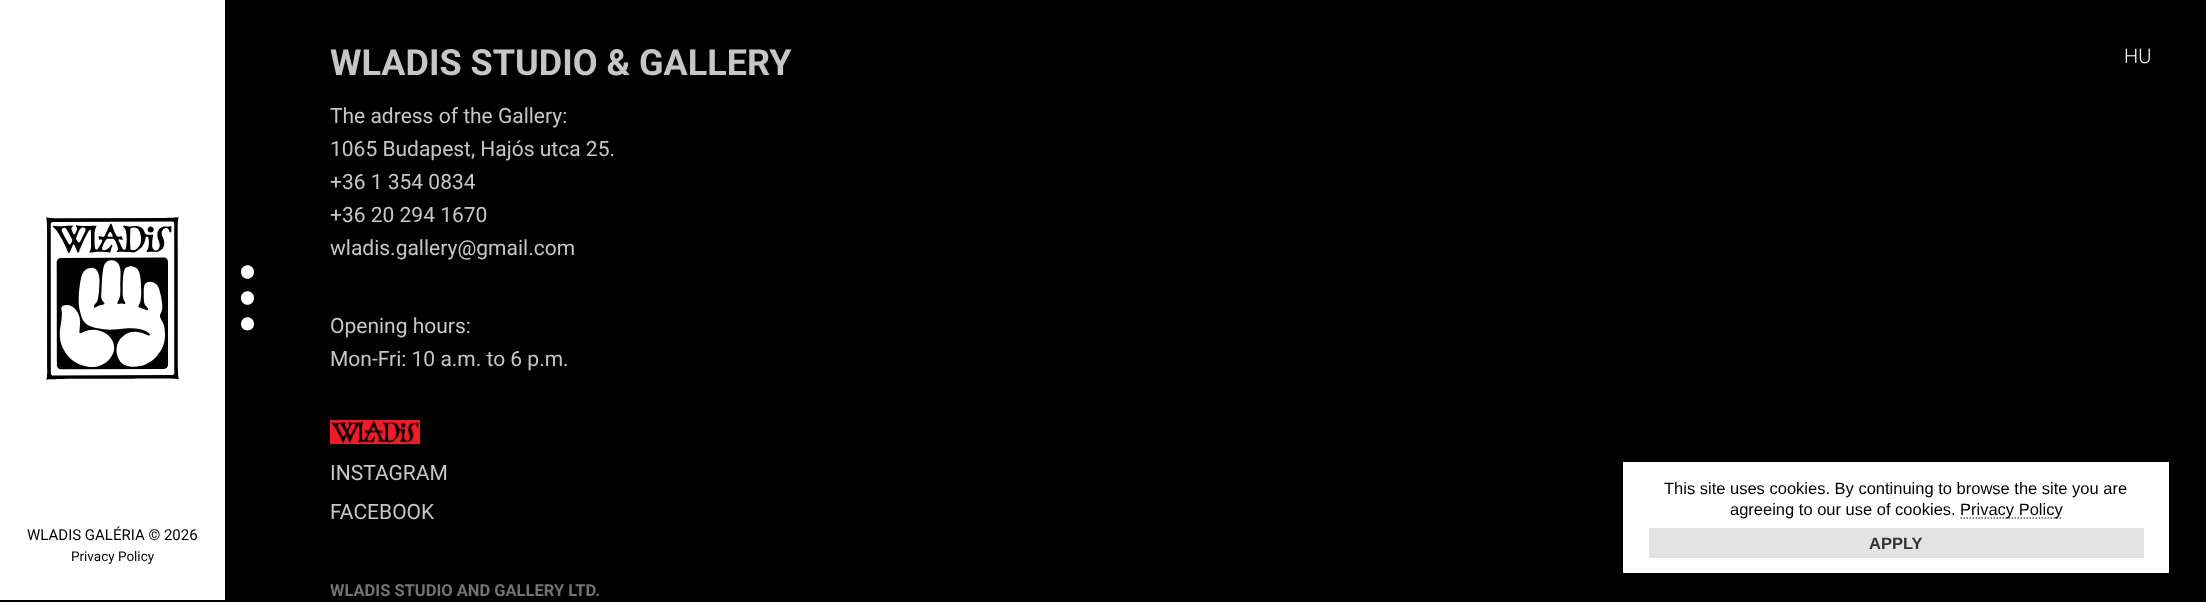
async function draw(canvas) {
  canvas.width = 2206;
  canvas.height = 602;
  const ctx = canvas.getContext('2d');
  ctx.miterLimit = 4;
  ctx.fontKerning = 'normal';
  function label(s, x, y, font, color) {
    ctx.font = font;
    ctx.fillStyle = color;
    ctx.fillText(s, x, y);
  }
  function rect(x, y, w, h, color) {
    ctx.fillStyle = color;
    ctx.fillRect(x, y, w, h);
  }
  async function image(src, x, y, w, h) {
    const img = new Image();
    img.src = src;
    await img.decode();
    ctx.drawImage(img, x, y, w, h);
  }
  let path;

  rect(0, 0, 2206, 602, '#000');
  label('WLADIS STUDIO & GALLERY', 330, 75, 'bold 36px Roboto', '#c6c6c6');
  label('The adress of the Gallery:', 330, 123, '21px Roboto', '#c6c6c6');
  label('1065 Budapest, Hajós utca 25.', 330, 156, '21px Roboto', '#c6c6c6');
  label('+36 1 354 0834', 330, 189, '21px Roboto', '#c6c6c6');
  label('+36 20 294 1670', 330, 222, '21px Roboto', '#c6c6c6');
  label('wladis.gallery@gmail.com', 330, 255, '21px Roboto', '#c6c6c6');
  label('Opening hours:', 330, 333, '21px Roboto', '#c6c6c6');
  label('Mon-Fri: 10 a.m. to 6 p.m.', 330, 366, '21px Roboto', '#c6c6c6');
  await image('assets/img1.png', 330, 420, 90, 24);
  label('INSTAGRAM', 330, 480, '21px Roboto', '#c6c6c6');
  label('FACEBOOK', 330, 519, '21px Roboto', '#c6c6c6');
  label('WLADIS STUDIO AND GALLERY LTD.', 330, 596, 'bold 16.5px Roboto', '#73736f');
  label('HU', 2124, 63, '300 20px Roboto', '#fff');
  path = new Path2D('M241 272C241 281 254 281 254 272C254 263 241 263 241 272M241 298C241 307 254 307 254 298C254 289 241 289 241 298');
  ctx.fill(path);
  path = new Path2D('M241 324C241 332.5 254 332.5 254 324C254 315 241 315 241 324');
  ctx.fill(path);
  rect(0, 0, 225, 600, '#fff');
  await image('assets/img2.png', 46, 217, 133, 163);
  label('WLADIS GALÉRIA © 2026', 27, 540, '15px Roboto', '#000');
  label('Privacy Policy', 71, 561, '13.5px Roboto', '#000');
  rect(1623, 462, 546, 111, '#fff');
  label('This site uses cookies. By continuing to browse the site you are', 1664, 494, '16.5px Liberation Sans', '#000');
  label('agreeing to our use of cookies.', 1730, 515, '16.5px Liberation Sans', '#000');
  path = new Path2D('M1960.5 518H2062.5');
  ctx.strokeStyle = '#616161';
  ctx.lineWidth = 1.5;
  ctx.setLineDash([1.5, 1.5]);
  ctx.stroke(path);
  label('Privacy Policy', 1960, 515, '16.5px Liberation Sans', '#000');
  rect(1649, 528, 495, 30, '#e3e3e3');
  label('APPLY', 1869, 549, 'bold 16.5px Liberation Sans', '#333');
}

draw(document.querySelector('canvas'));
